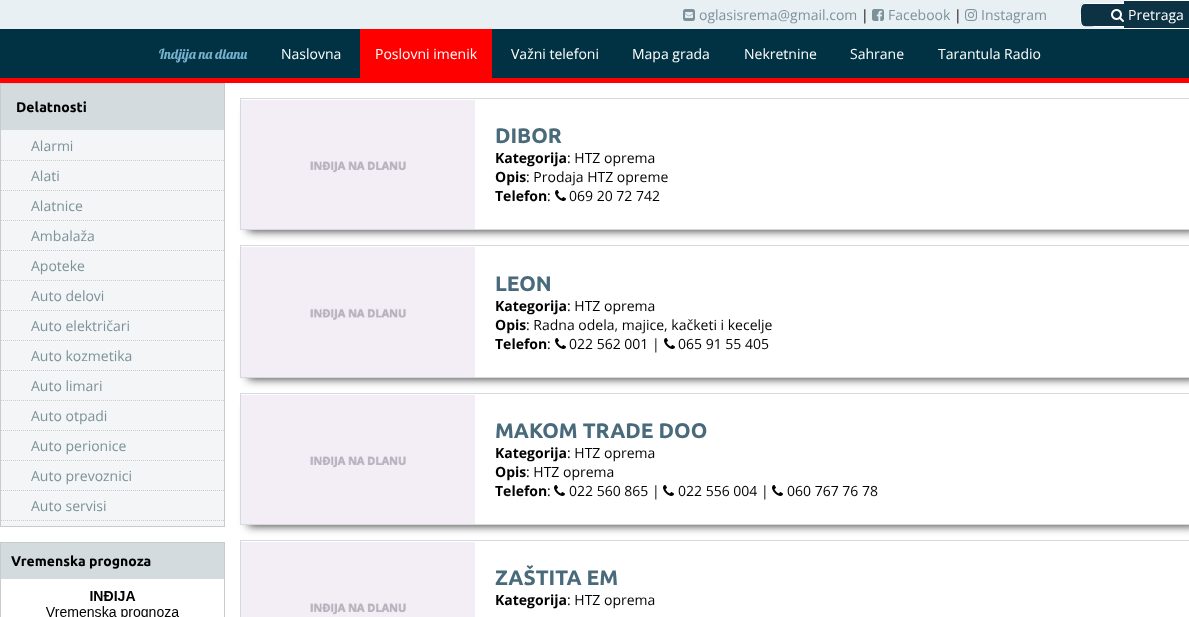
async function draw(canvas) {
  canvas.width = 1189;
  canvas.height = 617;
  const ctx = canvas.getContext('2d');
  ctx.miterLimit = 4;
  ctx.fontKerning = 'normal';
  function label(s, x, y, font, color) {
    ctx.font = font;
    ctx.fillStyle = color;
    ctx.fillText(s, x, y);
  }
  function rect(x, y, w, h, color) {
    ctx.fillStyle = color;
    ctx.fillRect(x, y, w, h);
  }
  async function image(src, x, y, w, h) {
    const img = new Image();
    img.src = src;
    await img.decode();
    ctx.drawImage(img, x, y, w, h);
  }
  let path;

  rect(0, 0, 1189, 617, '#fff');
  rect(0, 0, 1124, 29, '#e9f0f4');
  await image('assets/img1.png', 683, 9, 12, 12);
  label('oglasisrema@gmail.com', 699, 20, '14px Open Sans', '#7c929b');
  label('|', 861, 20, '14px Open Sans', '#000');
  await image('assets/img2.png', 872, 9, 12, 12);
  label('Facebook', 888, 20, '14px Open Sans', '#7c929b');
  label('|', 954, 20, '14px Open Sans', '#000');
  await image('assets/img3.png', 965, 9, 12, 12);
  label('Instagram', 981, 20, '14px Open Sans', '#7c929b');
  ctx.fillStyle = '#0c3243';
  ctx.beginPath();
  ctx.roundRect(1080, 3, 44, 24, [5, 0, 0, 5]);
  ctx.fill();
  ctx.fillStyle = '#fff';
  path = new Path2D('M1085 3H1124V27H1085C1082 27 1080 25 1080 22V8C1080 5 1082 3 1085 3ZM1085 4H1124V26H1098C1082 26 1081 29 1081 15C1081 12 1080 4 1085 4Z');
  ctx.fill(path, 'evenodd');
  rect(1124, 1, 65, 27, '#0c3243');
  await image('assets/img4.png', 1111, 9, 13, 13);
  label('Pretraga', 1128, 20, '14px Open Sans', '#fff');
  rect(0, 29, 1189, 49, '#013243');
  rect(0, 78, 1189, 5, '#f00');
  label('Indjija na dlanu', 159, 59, '14px Lobster', '#77b1cd');
  label('Naslovna', 281, 59, '14px Open Sans', '#fff');
  rect(360, 29, 132, 49, '#f00');
  label('Poslovni imenik', 375, 59, '14px Open Sans', '#fff');
  label('Važni telefoni', 511, 59, '14px Open Sans', '#fff');
  label('Mapa grada', 632, 59, '14px Open Sans', '#fff');
  label('Nekretnine', 744, 59, '14px Open Sans', '#fff');
  label('Sahrane', 850, 59, '14px Open Sans', '#fff');
  label('Tarantula Radio', 938, 59, '14px Open Sans', '#fff');
  rect(1, 131, 223, 395, '#f3f5f6');
  ctx.strokeStyle = '#c9cccd';
  ctx.strokeRect(0.5, 83.5, 224, 443);
  rect(1, 84, 223, 46, '#d3dbdf');
  rect(1, 130, 223, 1, '#f3f5f6');
  label('Delatnosti', 16, 112, 'bold 14px Ubuntu', '#000');
  path = new Path2D('M1 160.5H224');
  ctx.setLineDash([1, 1]);
  ctx.stroke(path);
  label('Alarmi', 31, 151, '14px Open Sans', '#7c929b');
  path = new Path2D('M1 190.5H224');
  ctx.stroke(path);
  label('Alati', 31, 181, '14px Open Sans', '#7c929b');
  path = new Path2D('M1 220.5H224');
  ctx.stroke(path);
  label('Alatnice', 31, 211, '14px Open Sans', '#7c929b');
  path = new Path2D('M1 250.5H224');
  ctx.stroke(path);
  label('Ambalaža', 31, 241, '14px Open Sans', '#7c929b');
  path = new Path2D('M1 280.5H224');
  ctx.stroke(path);
  label('Apoteke', 31, 271, '14px Open Sans', '#7c929b');
  path = new Path2D('M1 310.5H224');
  ctx.stroke(path);
  label('Auto delovi', 31, 301, '14px Open Sans', '#7c929b');
  path = new Path2D('M1 340.5H224');
  ctx.stroke(path);
  label('Auto električari', 31, 331, '14px Open Sans', '#7c929b');
  path = new Path2D('M1 370.5H224');
  ctx.stroke(path);
  label('Auto kozmetika', 31, 361, '14px Open Sans', '#7c929b');
  path = new Path2D('M1 400.5H224');
  ctx.stroke(path);
  label('Auto limari', 31, 391, '14px Open Sans', '#7c929b');
  path = new Path2D('M1 430.5H224');
  ctx.stroke(path);
  label('Auto otpadi', 31, 421, '14px Open Sans', '#7c929b');
  path = new Path2D('M1 460.5H224');
  ctx.stroke(path);
  label('Auto perionice', 31, 451, '14px Open Sans', '#7c929b');
  path = new Path2D('M1 490.5H224');
  ctx.stroke(path);
  label('Auto prevoznici', 31, 481, '14px Open Sans', '#7c929b');
  path = new Path2D('M1 520.5H224');
  ctx.stroke(path);
  label('Auto servisi', 31, 511, '14px Open Sans', '#7c929b');
  ctx.setLineDash([]);
  ctx.strokeRect(0.5, 542.5, 224, 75);
  rect(1, 543, 223, 36, '#d3dbdf');
  label('Vremenska prognoza', 11, 566, 'bold 14px Ubuntu', '#000');
  await image('assets/img5.png', 45, 591, 135, 26);
  ctx.save();
  path = new Path2D('M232 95H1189V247H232ZM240 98H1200V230H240Z');
  ctx.clip(path, 'evenodd');
  ctx.fillStyle = '#000000bf';
  ctx.filter = 'blur(5px)';
  ctx.beginPath();
  ctx.rect(248, 111, 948, 120);
  ctx.fill();
  ctx.filter = 'none';
  ctx.restore();
  ctx.strokeStyle = '#d3dbdf';
  ctx.strokeRect(240.5, 98.5, 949, 131);
  await image('assets/img6.png', 241, 100, 234, 129);
  label('DIBOR', 495, 143, 'bold 21px Ubuntu', '#496a7a');
  label('Kategorija', 495, 163, 'bold 14px Open Sans', '#000');
  label(': HTZ oprema', 567, 163, '14px Open Sans', '#000');
  label('Opis', 495, 182, 'bold 14px Open Sans', '#000');
  label(': Prodaja HTZ opreme', 526, 182, '14px Open Sans', '#000');
  label('Telefon', 495, 201, 'bold 14px Open Sans', '#000');
  label(':', 547, 201, '14px Open Sans', '#000');
  await image('assets/img7.png', 555, 190, 11, 11);
  label('069 20 72 742', 569, 201, '14px Open Sans', '#000');
  ctx.save();
  path = new Path2D('M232 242H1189V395H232ZM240 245H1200V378H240Z');
  ctx.clip(path, 'evenodd');
  ctx.fillStyle = '#000000bf';
  ctx.filter = 'blur(5px)';
  ctx.beginPath();
  ctx.rect(248, 258, 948, 121);
  ctx.fill();
  ctx.filter = 'none';
  ctx.restore();
  ctx.strokeRect(240.5, 245.5, 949, 132);
  await image('assets/img8.png', 241, 247, 234, 130);
  label('LEON', 495, 291, 'bold 21px Ubuntu', '#496a7a');
  label('Kategorija', 495, 311, 'bold 14px Open Sans', '#000');
  label(': HTZ oprema', 567, 311, '14px Open Sans', '#000');
  label('Opis', 495, 330, 'bold 14px Open Sans', '#000');
  label(': Radna odela, majice, kačketi i kecelje', 526, 330, '14px Open Sans', '#000');
  label('Telefon', 495, 349, 'bold 14px Open Sans', '#000');
  label(':', 547, 349, '14px Open Sans', '#000');
  await image('assets/img7.png', 555, 338, 11, 11);
  label('022 562 001 |', 569, 349, '14px Open Sans', '#000');
  await image('assets/img7.png', 664, 338, 11, 11);
  label('065 91 55 405', 678, 349, '14px Open Sans', '#000');
  ctx.save();
  path = new Path2D('M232 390H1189V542H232ZM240 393H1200V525H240Z');
  ctx.clip(path, 'evenodd');
  ctx.fillStyle = '#000000bf';
  ctx.filter = 'blur(5px)';
  ctx.beginPath();
  ctx.rect(248, 406, 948, 120);
  ctx.fill();
  ctx.filter = 'none';
  ctx.restore();
  ctx.strokeRect(240.5, 393.5, 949, 131);
  await image('assets/img6.png', 241, 395, 234, 129);
  label('MAKOM TRADE DOO', 495, 438, 'bold 21px Ubuntu', '#496a7a');
  label('Kategorija', 495, 458, 'bold 14px Open Sans', '#000');
  label(': HTZ oprema', 567, 458, '14px Open Sans', '#000');
  label('Opis', 495, 477, 'bold 14px Open Sans', '#000');
  label(': HTZ oprema', 526, 477, '14px Open Sans', '#000');
  label('Telefon', 495, 496, 'bold 14px Open Sans', '#000');
  label(':', 547, 496, '14px Open Sans', '#000');
  await image('assets/img7.png', 554, 485, 11, 11);
  label('022 560 865 |', 569, 496, '14px Open Sans', '#000');
  await image('assets/img7.png', 663, 485, 11, 11);
  label('022 556 004 |', 678, 496, '14px Open Sans', '#000');
  await image('assets/img7.png', 772, 485, 11, 11);
  label('060 767 76 78', 787, 496, '14px Open Sans', '#000');
  ctx.strokeRect(240.5, 540.5, 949, 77);
  await image('assets/img9.png', 241, 542, 234, 75);
  label('ZAŠTITA EM', 495, 585, 'bold 21px Ubuntu', '#496a7a');
  label('Kategorija', 495, 605, 'bold 14px Open Sans', '#000');
  label(': HTZ oprema', 567, 605, '14px Open Sans', '#000');
}

draw(document.querySelector('canvas'));
